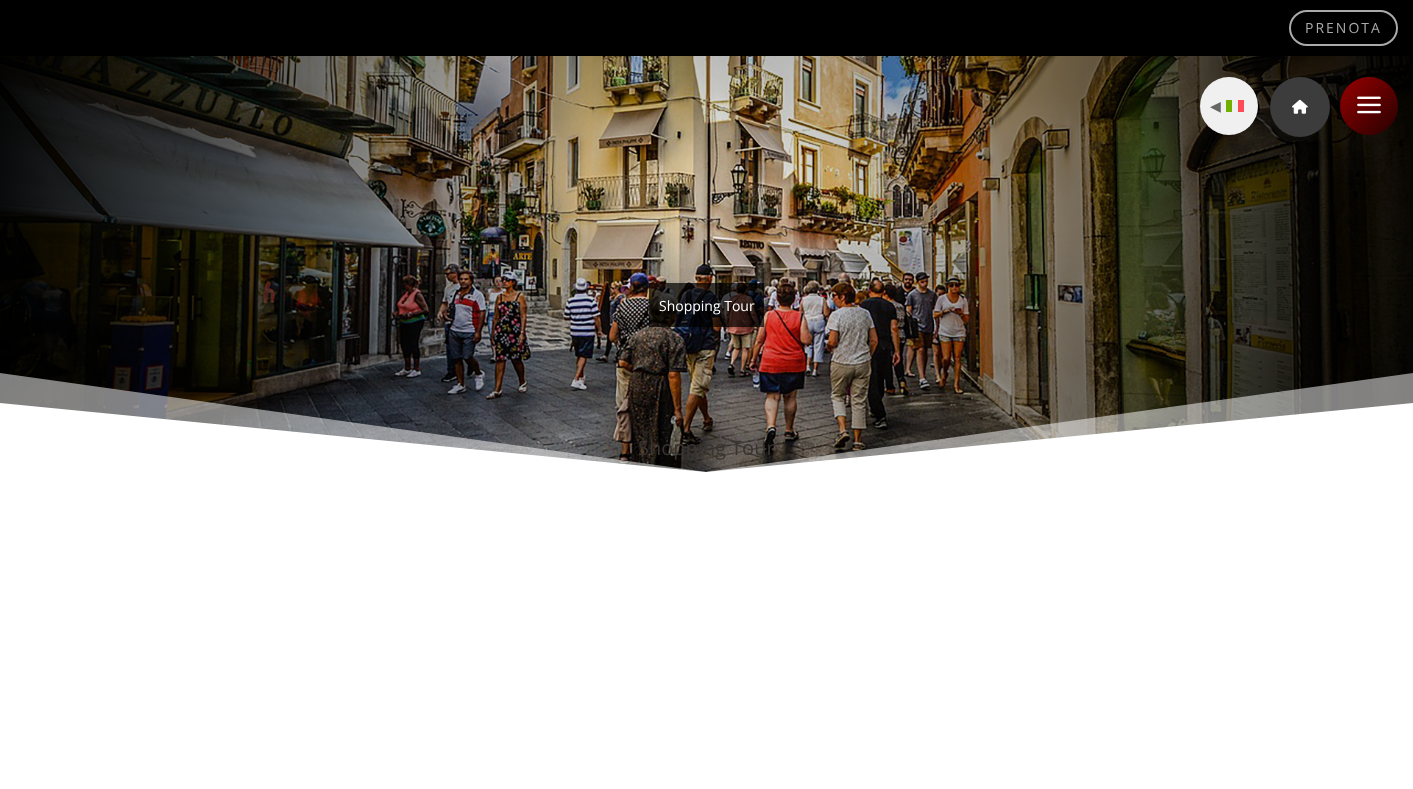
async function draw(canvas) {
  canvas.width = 1413;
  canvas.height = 789;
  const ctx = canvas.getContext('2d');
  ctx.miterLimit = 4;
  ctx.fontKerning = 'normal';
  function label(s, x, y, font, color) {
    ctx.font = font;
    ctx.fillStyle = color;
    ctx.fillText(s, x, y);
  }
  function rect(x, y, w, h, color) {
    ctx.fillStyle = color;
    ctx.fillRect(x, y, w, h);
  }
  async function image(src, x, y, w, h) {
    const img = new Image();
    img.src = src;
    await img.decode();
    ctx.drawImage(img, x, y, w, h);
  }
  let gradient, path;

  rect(0, 0, 1413, 789, '#fff');
  rect(0, 0, 1413, 56, '#000');
  ctx.beginPath();
  ctx.roundRect(1290, 11, 107, 34, 17);
  ctx.strokeStyle = '#aaa';
  ctx.lineWidth = 2;
  ctx.stroke();
  ctx.letterSpacing = '2px';
  label('PRENOTA', 1305, 33, '14px Open Sans', '#aaa');
  await image('assets/img3.png', 0, 56, 1413, 416);
  ctx.fillStyle = '#f0f0f0';
  ctx.beginPath();
  ctx.arc(1229, 106, 29, 0, 2 * Math.PI);
  ctx.fill();
  ctx.letterSpacing = '0px';
  label('◀', 1210, 111, '14px DejaVu Sans', '#666');
  rect(1238, 100, 6, 12, '#ff4b55');
  rect(1226, 100, 6, 12, '#73af00');
  ctx.fillStyle = '#3c3c3c';
  ctx.beginPath();
  ctx.arc(1300, 107, 30, 0, 2 * Math.PI);
  ctx.fill();
  await image('assets/img1.png', 1292, 99, 16, 15);
  gradient = ctx.createLinearGradient(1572, 309, 1340, 77);
  gradient.addColorStop(0, '#fe0000');
  gradient.addColorStop(0.33, '#900');
  gradient.addColorStop(0.67, '#000');
  gradient.addColorStop(1, '#900');
  ctx.fillStyle = gradient;
  ctx.beginPath();
  ctx.arc(1369, 106, 29, 0, 2 * Math.PI);
  ctx.fill();
  await image('assets/img2.png', 1357, 96, 24, 18);
  rect(649, 283, 115, 44, '#000000b3');
  label('Shopping Tour', 659, 311, '14px Open Sans', '#fff');
  label('Shopping Tour', 638, 455, '20px Open Sans', '#393430');
  ctx.fillStyle = '#ffffff80';
  path = new Path2D('M706 472L0 373V473H1413V373Z');
  ctx.fill(path);
  ctx.fillStyle = '#fff';
  path = new Path2D('M706 472L0 403V473H1413V403Z');
  ctx.fill(path);
}

draw(document.querySelector('canvas'));
